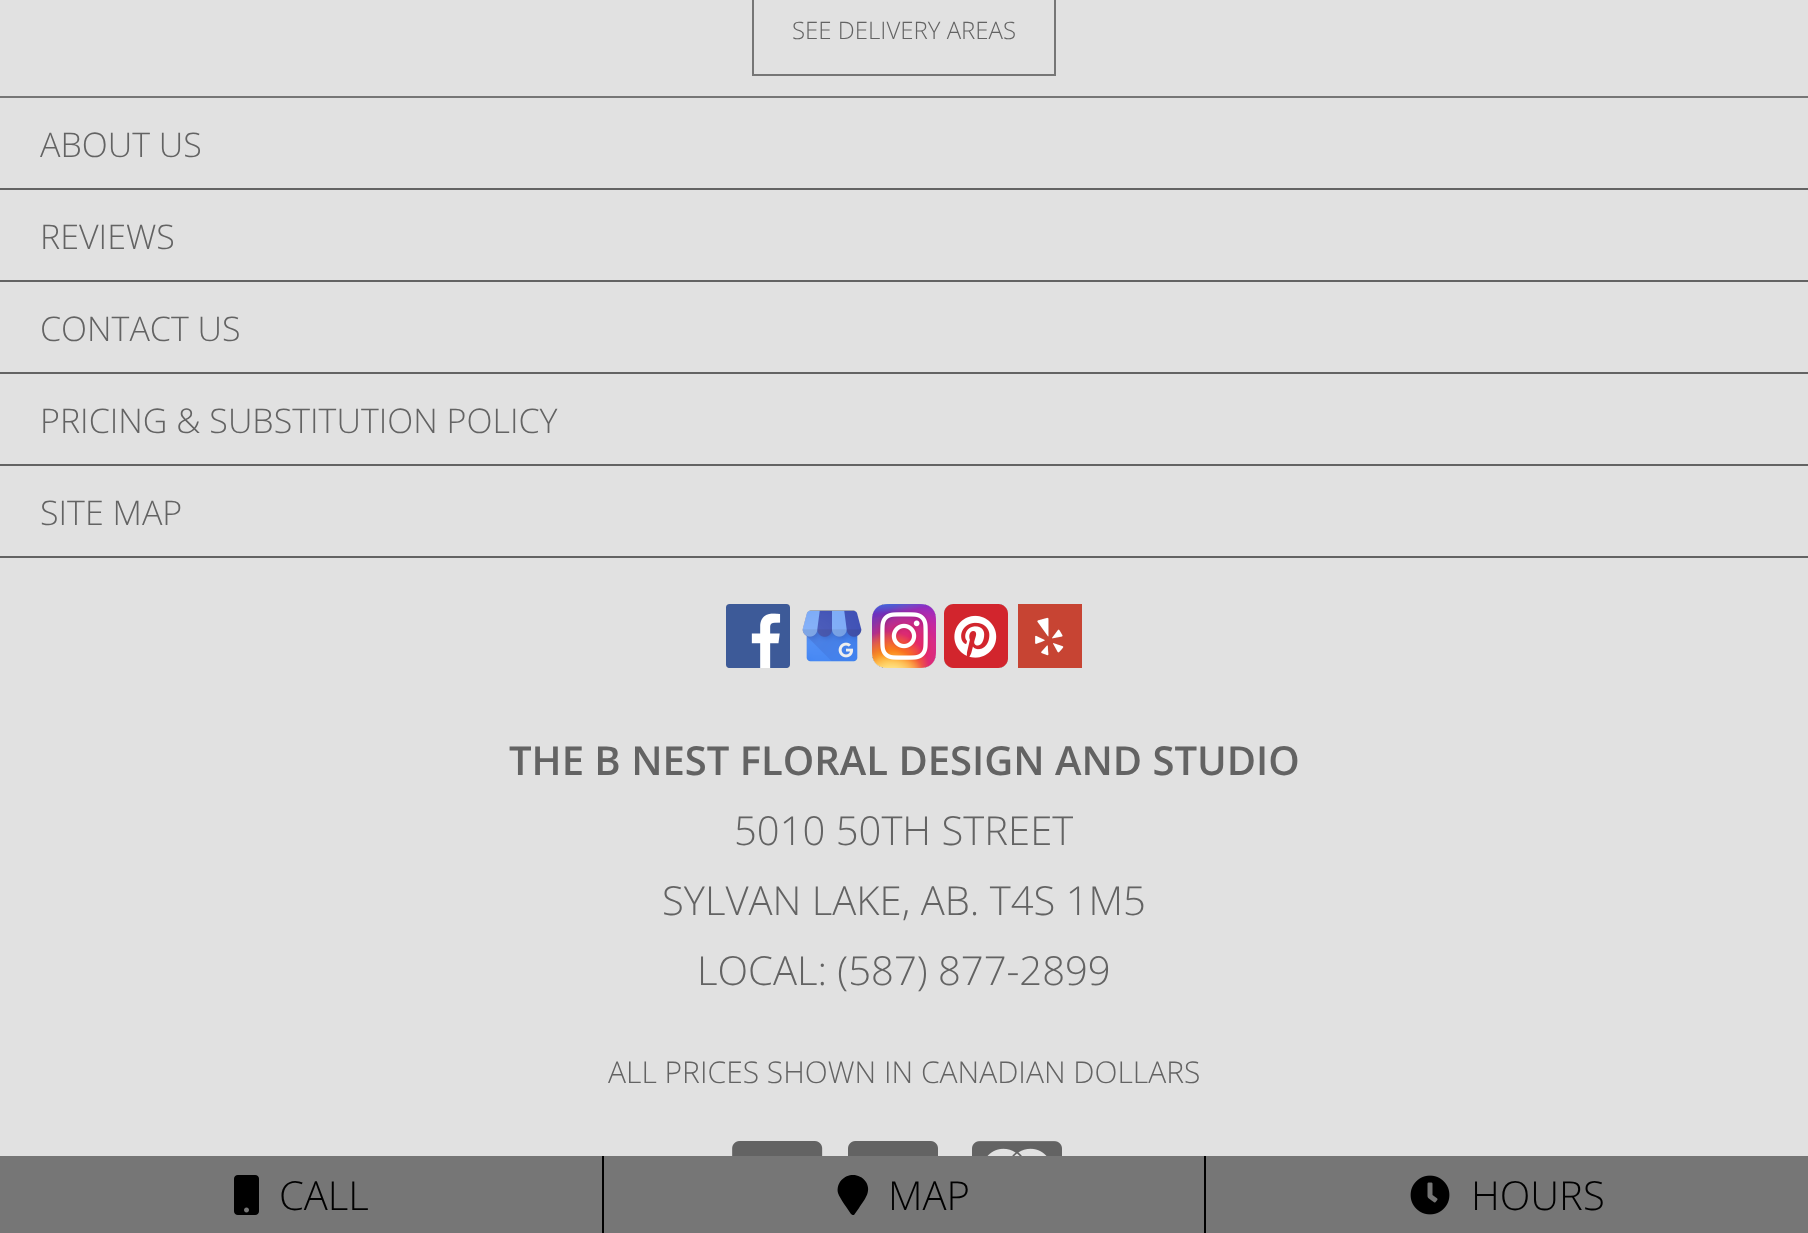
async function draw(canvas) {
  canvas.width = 1808;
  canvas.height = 1233;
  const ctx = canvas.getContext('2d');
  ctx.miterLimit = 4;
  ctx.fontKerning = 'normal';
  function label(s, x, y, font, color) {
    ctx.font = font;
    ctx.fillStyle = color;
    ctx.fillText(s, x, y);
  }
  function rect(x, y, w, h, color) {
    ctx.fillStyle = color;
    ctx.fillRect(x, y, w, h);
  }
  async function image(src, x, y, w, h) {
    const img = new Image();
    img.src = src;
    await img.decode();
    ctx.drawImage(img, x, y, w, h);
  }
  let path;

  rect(0, 0, 1808, 1233, '#e1e1e1');
  rect(0, 96, 1808, 2, '#767676');
  ctx.strokeStyle = '#767676';
  ctx.lineWidth = 2;
  ctx.strokeRect(753, -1, 302, 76);
  label('SEE DELIVERY AREAS', 792, 39, '300 24px Open Sans', '#636363');
  rect(0, 188, 1808, 2, '#636363');
  label('ABOUT US', 40, 157, '300 34px Open Sans', '#636363');
  rect(0, 280, 1808, 2, '#636363');
  label('REVIEWS', 40, 249, '300 34px Open Sans', '#636363');
  rect(0, 372, 1808, 2, '#636363');
  label('CONTACT US', 40, 341, '300 34px Open Sans', '#636363');
  rect(0, 464, 1808, 2, '#636363');
  label('PRICING & SUBSTITUTION POLICY', 40, 433, '300 34px Open Sans', '#636363');
  rect(0, 556, 1808, 2, '#636363');
  label('SITE MAP', 40, 525, '300 34px Open Sans', '#636363');
  await image('assets/img1.png', 726, 604, 64, 64);
  await image('assets/img2.png', 802, 610, 60, 52);
  await image('assets/img3.png', 872, 604, 64, 64);
  await image('assets/img4.png', 944, 604, 64, 64);
  await image('assets/img5.png', 1018, 604, 64, 64);
  label('THE B NEST FLORAL DESIGN AND STUDIO', 509, 775, '600 40px Open Sans', '#636363');
  label('5010 50TH STREET', 734, 845, '300 40px Open Sans', '#636363');
  label('SYLVAN LAKE, AB. T4S 1M5', 662, 915, '300 40px Open Sans', '#636363');
  label('LOCAL: (587) 877-2899', 697, 985, '300 40px Open Sans', '#636363');
  label('ALL PRICES SHOWN IN CANADIAN DOLLARS', 608, 1083, '300 30px Open Sans', '#636363');
  await image('assets/img6.png', 732, 1141, 91, 15);
  await image('assets/img7.png', 848, 1141, 90, 15);
  await image('assets/img8.png', 972, 1141, 90, 15);
  rect(0, 1156, 602, 77, '#767676');
  await image('assets/img9.png', 234, 1175, 25, 40);
  label('CALL', 279, 1210, '300 40px Open Sans', '#000');
  rect(604, 1156, 600, 77, '#767676');
  rect(602, 1156, 2, 77, '#000');
  path = new Path2D('M851 1214C848 1209 840 1199 838 1193C835 1177 856 1168 866 1182C872 1192 864 1200 859 1208L854 1215C853 1215 852 1215 851 1214Z');
  ctx.fill(path);
  label('MAP', 888, 1210, '300 40px Open Sans', '#000');
  rect(1206, 1156, 602, 77, '#767676');
  rect(1204, 1156, 2, 77, '#000');
  await image('assets/img10.png', 1410, 1175, 40, 40);
  label('HOURS', 1471, 1210, '300 40px Open Sans', '#000');
}

draw(document.querySelector('canvas'));
